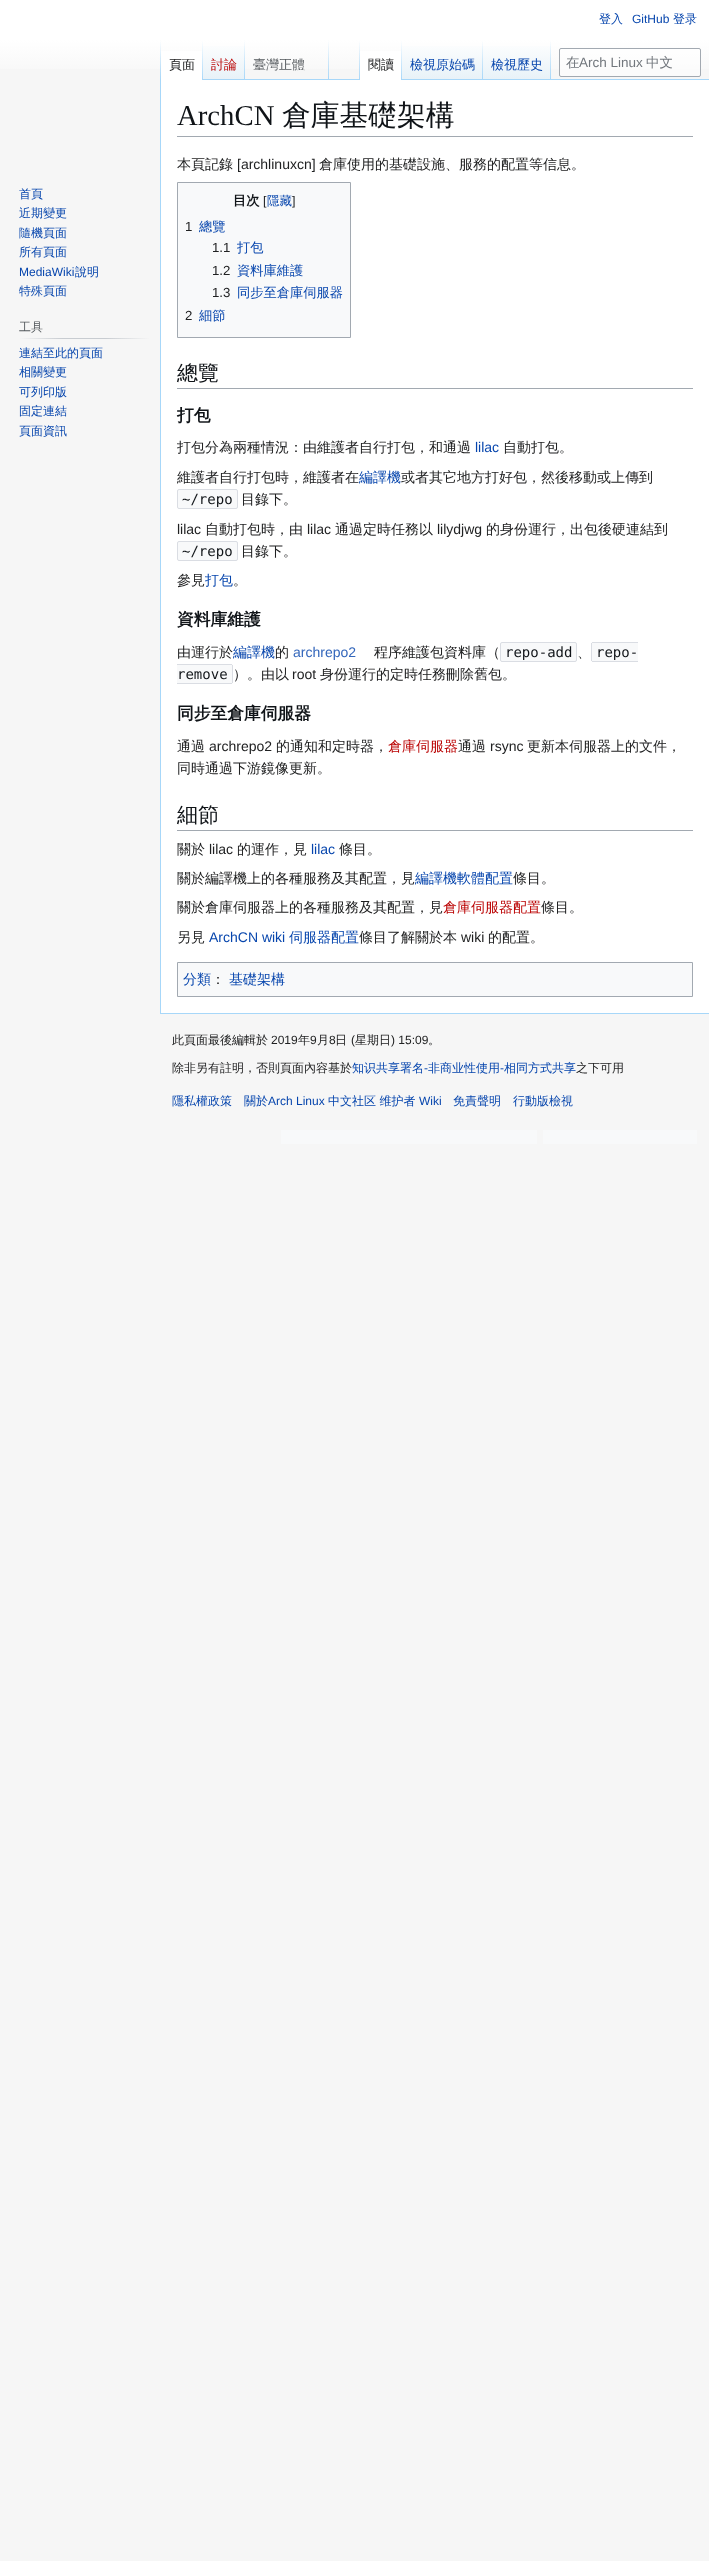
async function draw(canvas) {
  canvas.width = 709;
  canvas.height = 2561;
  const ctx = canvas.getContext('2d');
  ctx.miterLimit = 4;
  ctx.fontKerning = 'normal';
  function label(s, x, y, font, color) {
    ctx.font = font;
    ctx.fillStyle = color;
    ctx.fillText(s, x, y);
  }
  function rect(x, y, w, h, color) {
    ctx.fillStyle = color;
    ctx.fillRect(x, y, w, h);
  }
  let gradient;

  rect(0, 0, 709, 2561, '#f6f6f6');
  gradient = ctx.createLinearGradient(355, 0, 355, 80);
  gradient.addColorStop(0.5, '#fff');
  gradient.addColorStop(1, '#f6f6f6');
  ctx.fillStyle = gradient;
  ctx.fillRect(0, 0, 709, 69);
  label('登入', 599, 23, '500 12px WenQuanYi Zen Hei', '#0645ad');
  label('GitHub', 632, 23, '12px Liberation Sans', '#0645ad');
  label('登录', 673, 23, '500 12px WenQuanYi Zen Hei', '#0645ad');
  rect(160, 1013, 549, 1, '#a7d7f9');
  rect(160, 79, 1, 935, '#a7d7f9');
  gradient = ctx.createLinearGradient(161, 40, 161, 80);
  gradient.addColorStop(0, '#a7d7f900');
  gradient.addColorStop(1, '#a7d7f9');
  ctx.fillStyle = gradient;
  ctx.fillRect(160, 40, 1, 40);
  rect(161, 51, 41, 29, '#fff');
  gradient = ctx.createLinearGradient(203, 40, 203, 80);
  gradient.addColorStop(0, '#fff');
  gradient.addColorStop(1, '#a7d7f9');
  ctx.fillStyle = gradient;
  ctx.fillRect(202, 40, 1, 40);
  label('頁面', 169, 69, '500 13px WenQuanYi Zen Hei', '#202122');
  gradient = ctx.createLinearGradient(224, 80, 224, 40);
  gradient.addColorStop(0, '#77c1f6');
  gradient.addColorStop(0.03, '#e8f2f8');
  gradient.addColorStop(1, '#fff');
  ctx.fillStyle = gradient;
  ctx.fillRect(203, 46, 42, 34);
  gradient = ctx.createLinearGradient(245, 40, 245, 80);
  gradient.addColorStop(0, '#a7d7f900');
  gradient.addColorStop(1, '#a7d7f9');
  ctx.fillStyle = gradient;
  ctx.fillRect(244, 40, 1, 40);
  label('討論', 211, 69, '500 13px WenQuanYi Zen Hei', '#ba0000');
  rect(245, 79, 464, 1, '#a7d7f9');
  gradient = ctx.createLinearGradient(329, 40, 329, 80);
  gradient.addColorStop(0, '#a7d7f900');
  gradient.addColorStop(1, '#a7d7f9');
  ctx.fillStyle = gradient;
  ctx.fillRect(328, 40, 1, 40);
  label('臺灣正體', 253, 69, '500 13px WenQuanYi Zen Hei', '#54595d');
  gradient = ctx.createLinearGradient(360, 40, 360, 80);
  gradient.addColorStop(0, '#a7d7f900');
  gradient.addColorStop(1, '#a7d7f9');
  ctx.fillStyle = gradient;
  ctx.fillRect(359, 40, 1, 40);
  rect(360, 51, 41, 29, '#fff');
  gradient = ctx.createLinearGradient(402, 40, 402, 80);
  gradient.addColorStop(0, '#fff');
  gradient.addColorStop(1, '#a7d7f9');
  ctx.fillStyle = gradient;
  ctx.fillRect(401, 40, 1, 40);
  label('閱讀', 368, 69, '500 13px WenQuanYi Zen Hei', '#202122');
  gradient = ctx.createLinearGradient(443, 80, 443, 40);
  gradient.addColorStop(0, '#77c1f6');
  gradient.addColorStop(0.03, '#e8f2f8');
  gradient.addColorStop(1, '#fff');
  ctx.fillStyle = gradient;
  ctx.fillRect(402, 46, 81, 33);
  gradient = ctx.createLinearGradient(483, 40, 483, 80);
  gradient.addColorStop(0, '#a7d7f900');
  gradient.addColorStop(1, '#a7d7f9');
  ctx.fillStyle = gradient;
  ctx.fillRect(482, 40, 1, 40);
  label('檢視原始碼', 410, 69, '500 13px WenQuanYi Zen Hei', '#0645ad');
  gradient = ctx.createLinearGradient(517, 80, 517, 40);
  gradient.addColorStop(0, '#77c1f6');
  gradient.addColorStop(0.03, '#e8f2f8');
  gradient.addColorStop(1, '#fff');
  ctx.fillStyle = gradient;
  ctx.fillRect(483, 46, 68, 33);
  gradient = ctx.createLinearGradient(551, 40, 551, 80);
  gradient.addColorStop(0, '#a7d7f900');
  gradient.addColorStop(1, '#a7d7f9');
  ctx.fillStyle = gradient;
  ctx.fillRect(550, 40, 1, 40);
  label('檢視歷史', 491, 69, '500 13px WenQuanYi Zen Hei', '#0645ad');
  ctx.fillStyle = '#ffffff80';
  ctx.beginPath();
  ctx.roundRect(559.5, 48.5, 141, 28, 1.5);
  ctx.fill();
  ctx.strokeStyle = '#a2a9b1';
  ctx.stroke();
  label('在', 566, 67, '500 13.5px WenQuanYi Zen Hei', '#72777d');
  label('Arch Linux', 579, 67, '13.5px Liberation Sans', '#72777d');
  label('中文', 646, 67, '500 13.5px WenQuanYi Zen Hei', '#72777d');
  label('首頁', 19, 198, '500 12px WenQuanYi Zen Hei', '#0645ad');
  label('近期變更', 19, 217, '500 12px WenQuanYi Zen Hei', '#0645ad');
  label('隨機頁面', 19, 237, '500 12px WenQuanYi Zen Hei', '#0645ad');
  label('所有頁面', 19, 256, '500 12px WenQuanYi Zen Hei', '#0645ad');
  label('MediaWiki', 19, 276, '12px Liberation Sans', '#0645ad');
  label('說明', 75, 276, '500 12px WenQuanYi Zen Hei', '#0645ad');
  label('特殊頁面', 19, 295, '500 12px WenQuanYi Zen Hei', '#0645ad');
  gradient = ctx.createLinearGradient(19, 339, 150, 339);
  gradient.addColorStop(0, '#f6f6f6');
  gradient.addColorStop(0.33, '#c8ccd1');
  gradient.addColorStop(0.66, '#c8ccd1');
  gradient.addColorStop(1, '#f6f6f6');
  ctx.fillStyle = gradient;
  ctx.fillRect(19, 338, 131, 1);
  label('工具', 19, 331, '500 12px WenQuanYi Zen Hei', '#54595d');
  label('連結至此的頁面', 19, 357, '500 12px WenQuanYi Zen Hei', '#0645ad');
  label('相關變更', 19, 376, '500 12px WenQuanYi Zen Hei', '#0645ad');
  label('可列印版', 19, 396, '500 12px WenQuanYi Zen Hei', '#0645ad');
  label('固定連結', 19, 415, '500 12px WenQuanYi Zen Hei', '#0645ad');
  label('頁面資訊', 19, 435, '500 12px WenQuanYi Zen Hei', '#0645ad');
  rect(161, 80, 548, 933, '#fff');
  rect(177, 136, 516, 1, '#a2a9b1');
  label('ArchCN', 177, 125, '28.75px Liberation Serif', '#101418');
  label('倉庫基礎架構', 282, 125, '500 28.75px WenQuanYi Zen Hei', '#101418');
  label('本頁記錄', 177, 169, '500 14px WenQuanYi Zen Hei', '#202122');
  label('[archlinuxcn]', 237, 169, '14px Liberation Sans', '#202122');
  label('倉庫使用的基礎設施、服務的配置等信息。', 319, 169, '500 14px WenQuanYi Zen Hei', '#202122');
  ctx.fillStyle = '#f8f9fa';
  ctx.beginPath();
  ctx.rect(177.5, 182.5, 173, 155);
  ctx.fill();
  ctx.stroke();
  label('目次', 233, 205, 'bold 13.25px WenQuanYi Zen Hei', '#101418');
  label('[', 263, 205, '12.5px Liberation Sans', '#202122');
  label('隱藏', 267, 205, '500 12.5px WenQuanYi Zen Hei', '#0645ad');
  label(']', 292, 205, '12.5px Liberation Sans', '#202122');
  label('1', 185, 231, '13.25px Liberation Sans', '#202122');
  label('總覽', 199, 231, '500 13.25px WenQuanYi Zen Hei', '#0645ad');
  label('1.1', 212, 252, '13.25px Liberation Sans', '#202122');
  label('打包', 237, 252, '500 13.25px WenQuanYi Zen Hei', '#0645ad');
  label('1.2', 212, 275, '13.25px Liberation Sans', '#202122');
  label('資料庫維護', 237, 275, '500 13.25px WenQuanYi Zen Hei', '#0645ad');
  label('1.3', 212, 297, '13.25px Liberation Sans', '#202122');
  label('同步至倉庫伺服器', 237, 297, '500 13.25px WenQuanYi Zen Hei', '#0645ad');
  label('2', 185, 320, '13.25px Liberation Sans', '#202122');
  label('細節', 199, 320, '500 13.25px WenQuanYi Zen Hei', '#0645ad');
  rect(177, 388, 516, 1, '#a2a9b1');
  label('總覽', 177, 380, '500 21px WenQuanYi Zen Hei', '#101418');
  label('打包', 177, 421, 'bold 16.75px WenQuanYi Zen Hei', '#101418');
  label('打包分為兩種情況：由維護者自行打包，和通過', 177, 452, '500 14px WenQuanYi Zen Hei', '#202122');
  label('lilac', 475, 452, '14px Liberation Sans', '#0645ad');
  label('自動打包。', 503, 452, '500 14px WenQuanYi Zen Hei', '#202122');
  label('維護者自行打包時，維護者在', 177, 482, '500 14px WenQuanYi Zen Hei', '#202122');
  label('編譯機', 359, 482, '500 14px WenQuanYi Zen Hei', '#0645ad');
  label('或者其它地方打好包，然後移動或上傳到', 401, 482, '500 14px WenQuanYi Zen Hei', '#202122');
  ctx.fillStyle = '#f8f9fa';
  ctx.beginPath();
  ctx.roundRect(177.5, 489.5, 60, 19, 1.5);
  ctx.fill();
  ctx.strokeStyle = '#dadde3';
  ctx.stroke();
  label('~/repo', 182, 504, '14px DejaVu Sans Mono', '#101418');
  label('目錄下。', 241, 504, '500 14px WenQuanYi Zen Hei', '#202122');
  label('lilac', 177, 534, '14px Liberation Sans', '#202122');
  label('自動打包時，由', 205, 534, '500 14px WenQuanYi Zen Hei', '#202122');
  label('lilac', 307, 534, '14px Liberation Sans', '#202122');
  label('通過定時任務以', 335, 534, '500 14px WenQuanYi Zen Hei', '#202122');
  label('lilydjwg', 437, 534, '14px Liberation Sans', '#202122');
  label('的身份運行，出包後硬連結到', 486, 534, '500 14px WenQuanYi Zen Hei', '#202122');
  ctx.fillStyle = '#f8f9fa';
  ctx.beginPath();
  ctx.roundRect(177.5, 541.5, 60, 19, 1.5);
  ctx.fill();
  ctx.stroke();
  label('~/repo', 182, 556, '14px DejaVu Sans Mono', '#101418');
  label('目錄下。', 241, 556, '500 14px WenQuanYi Zen Hei', '#202122');
  label('參見', 177, 585, '500 14px WenQuanYi Zen Hei', '#202122');
  label('打包', 205, 585, '500 14px WenQuanYi Zen Hei', '#0645ad');
  label('。', 233, 585, '500 14px WenQuanYi Zen Hei', '#202122');
  label('資料庫維護', 177, 625, 'bold 16.75px WenQuanYi Zen Hei', '#101418');
  label('由運行於', 177, 657, '500 14px WenQuanYi Zen Hei', '#202122');
  label('編譯機', 233, 657, '500 14px WenQuanYi Zen Hei', '#0645ad');
  label('的', 275, 657, '500 14px WenQuanYi Zen Hei', '#202122');
  label('archrepo2', 293, 657, '14px Liberation Sans', '#36b');
  label('程序維護包資料庫（', 374, 657, '500 14px WenQuanYi Zen Hei', '#202122');
  ctx.fillStyle = '#f8f9fa';
  ctx.beginPath();
  ctx.roundRect(500.5, 642.5, 76, 19, 1.5);
  ctx.fill();
  ctx.stroke();
  label('repo-add', 505, 657, '14px DejaVu Sans Mono', '#101418');
  label('、', 577, 657, '500 14px WenQuanYi Zen Hei', '#202122');
  ctx.fillStyle = '#f8f9fa';
  ctx.beginPath();
  ctx.roundRect(591, 642, 47, 20, [2, 0, 0, 2]);
  ctx.fill();
  label('repo-', 596, 657, '14px DejaVu Sans Mono', '#101418');
  rect(592, 642, 46, 1, '#dadde3');
  rect(592, 661, 46, 1, '#dadde3');
  rect(591, 643, 1, 18, '#dadde3');
  ctx.fillStyle = '#f8f9fa';
  ctx.beginPath();
  ctx.roundRect(177, 664, 56, 20, [0, 2, 2, 0]);
  ctx.fill();
  label('remove', 177, 679, '14px DejaVu Sans Mono', '#101418');
  rect(177, 664, 55, 1, '#dadde3');
  rect(232, 665, 1, 18, '#dadde3');
  rect(177, 683, 55, 1, '#dadde3');
  label('）。由以', 233, 679, '500 14px WenQuanYi Zen Hei', '#202122');
  label('root', 292, 679, '14px Liberation Sans', '#202122');
  label('身份運行的定時任務刪除舊包。', 320, 679, '500 14px WenQuanYi Zen Hei', '#202122');
  label('同步至倉庫伺服器', 177, 719, 'bold 16.75px WenQuanYi Zen Hei', '#101418');
  label('通過', 177, 751, '500 14px WenQuanYi Zen Hei', '#202122');
  label('archrepo2', 209, 751, '14px Liberation Sans', '#202122');
  label('的通知和定時器，', 276, 751, '500 14px WenQuanYi Zen Hei', '#202122');
  label('倉庫伺服器', 388, 751, '500 14px WenQuanYi Zen Hei', '#ba0000');
  label('通過', 458, 751, '500 14px WenQuanYi Zen Hei', '#202122');
  label('rsync', 490, 751, '14px Liberation Sans', '#202122');
  label('更新本伺服器上的文件，', 527, 751, '500 14px WenQuanYi Zen Hei', '#202122');
  label('同時通過下游鏡像更新。', 177, 773, '500 14px WenQuanYi Zen Hei', '#202122');
  rect(177, 830, 516, 1, '#a2a9b1');
  label('細節', 177, 822, '500 21px WenQuanYi Zen Hei', '#101418');
  label('關於', 177, 854, '500 14px WenQuanYi Zen Hei', '#202122');
  label('lilac', 209, 854, '14px Liberation Sans', '#202122');
  label('的運作，見', 237, 854, '500 14px WenQuanYi Zen Hei', '#202122');
  label('lilac', 311, 854, '14px Liberation Sans', '#0645ad');
  label('條目。', 339, 854, '500 14px WenQuanYi Zen Hei', '#202122');
  label('關於編譯機上的各種服務及其配置，見', 177, 883, '500 14px WenQuanYi Zen Hei', '#202122');
  label('編譯機軟體配置', 415, 883, '500 14px WenQuanYi Zen Hei', '#0645ad');
  label('條目。', 513, 883, '500 14px WenQuanYi Zen Hei', '#202122');
  label('關於倉庫伺服器上的各種服務及其配置，見', 177, 912, '500 14px WenQuanYi Zen Hei', '#202122');
  label('倉庫伺服器配置', 443, 912, '500 14px WenQuanYi Zen Hei', '#ba0000');
  label('條目。', 541, 912, '500 14px WenQuanYi Zen Hei', '#202122');
  label('另見', 177, 942, '500 14px WenQuanYi Zen Hei', '#202122');
  label('ArchCN wiki', 209, 942, '14px Liberation Sans', '#0645ad');
  label('伺服器配置', 289, 942, '500 14px WenQuanYi Zen Hei', '#0645ad');
  label('條目了解關於本', 359, 942, '500 14px WenQuanYi Zen Hei', '#202122');
  label('wiki', 461, 942, '14px Liberation Sans', '#202122');
  label('的配置。', 488, 942, '500 14px WenQuanYi Zen Hei', '#202122');
  ctx.fillStyle = '#f8f9fa';
  ctx.beginPath();
  ctx.rect(177.5, 962.5, 515, 34);
  ctx.fill();
  ctx.strokeStyle = '#a2a9b1';
  ctx.stroke();
  label('分類', 183, 984, '500 14px WenQuanYi Zen Hei', '#0645ad');
  label('：', 211, 984, '500 14px WenQuanYi Zen Hei', '#202122');
  label('基礎架構', 229, 984, '500 14px WenQuanYi Zen Hei', '#0645ad');
  label('此頁面最後編輯於', 172, 1044, '500 12px WenQuanYi Zen Hei', '#202122');
  label('2019', 271, 1044, '12px Liberation Sans', '#202122');
  label('年', 298, 1044, '500 12px WenQuanYi Zen Hei', '#202122');
  label('9', 310, 1044, '12px Liberation Sans', '#202122');
  label('月', 317, 1044, '500 12px WenQuanYi Zen Hei', '#202122');
  label('8', 329, 1044, '12px Liberation Sans', '#202122');
  label('日', 335, 1044, '500 12px WenQuanYi Zen Hei', '#202122');
  label('(', 351, 1044, '12px Liberation Sans', '#202122');
  label('星期日', 355, 1044, '500 12px WenQuanYi Zen Hei', '#202122');
  label(') 15:09', 391, 1044, '12px Liberation Sans', '#202122');
  label('。', 428, 1044, '500 12px WenQuanYi Zen Hei', '#202122');
  label('除非另有註明，否則頁面內容基於', 172, 1072, '500 12px WenQuanYi Zen Hei', '#202122');
  label('知识共享署名', 352, 1072, '500 12px WenQuanYi Zen Hei', '#0645ad');
  label('-', 424, 1072, '12px Liberation Sans', '#0645ad');
  label('非商业性使用', 428, 1072, '500 12px WenQuanYi Zen Hei', '#0645ad');
  label('-', 500, 1072, '12px Liberation Sans', '#0645ad');
  label('相同方式共享', 504, 1072, '500 12px WenQuanYi Zen Hei', '#0645ad');
  label('之下可用', 576, 1072, '500 12px WenQuanYi Zen Hei', '#202122');
  label('隱私權政策', 172, 1105, '500 12px WenQuanYi Zen Hei', '#0645ad');
  label('關於', 244, 1105, '500 12px WenQuanYi Zen Hei', '#0645ad');
  label('Arch Linux', 268, 1105, '12px Liberation Sans', '#0645ad');
  label('中文社区 维护者', 328, 1105, '500 12px WenQuanYi Zen Hei', '#0645ad');
  label('Wiki', 419, 1105, '12px Liberation Sans', '#0645ad');
  label('免責聲明', 453, 1105, '500 12px WenQuanYi Zen Hei', '#0645ad');
  label('行動版檢視', 513, 1105, '500 12px WenQuanYi Zen Hei', '#0645ad');
  rect(281, 1130, 256, 14, '#f8f9fa');
  rect(543, 1130, 154, 14, '#f8f9fa');
}

draw(document.querySelector('canvas'));
